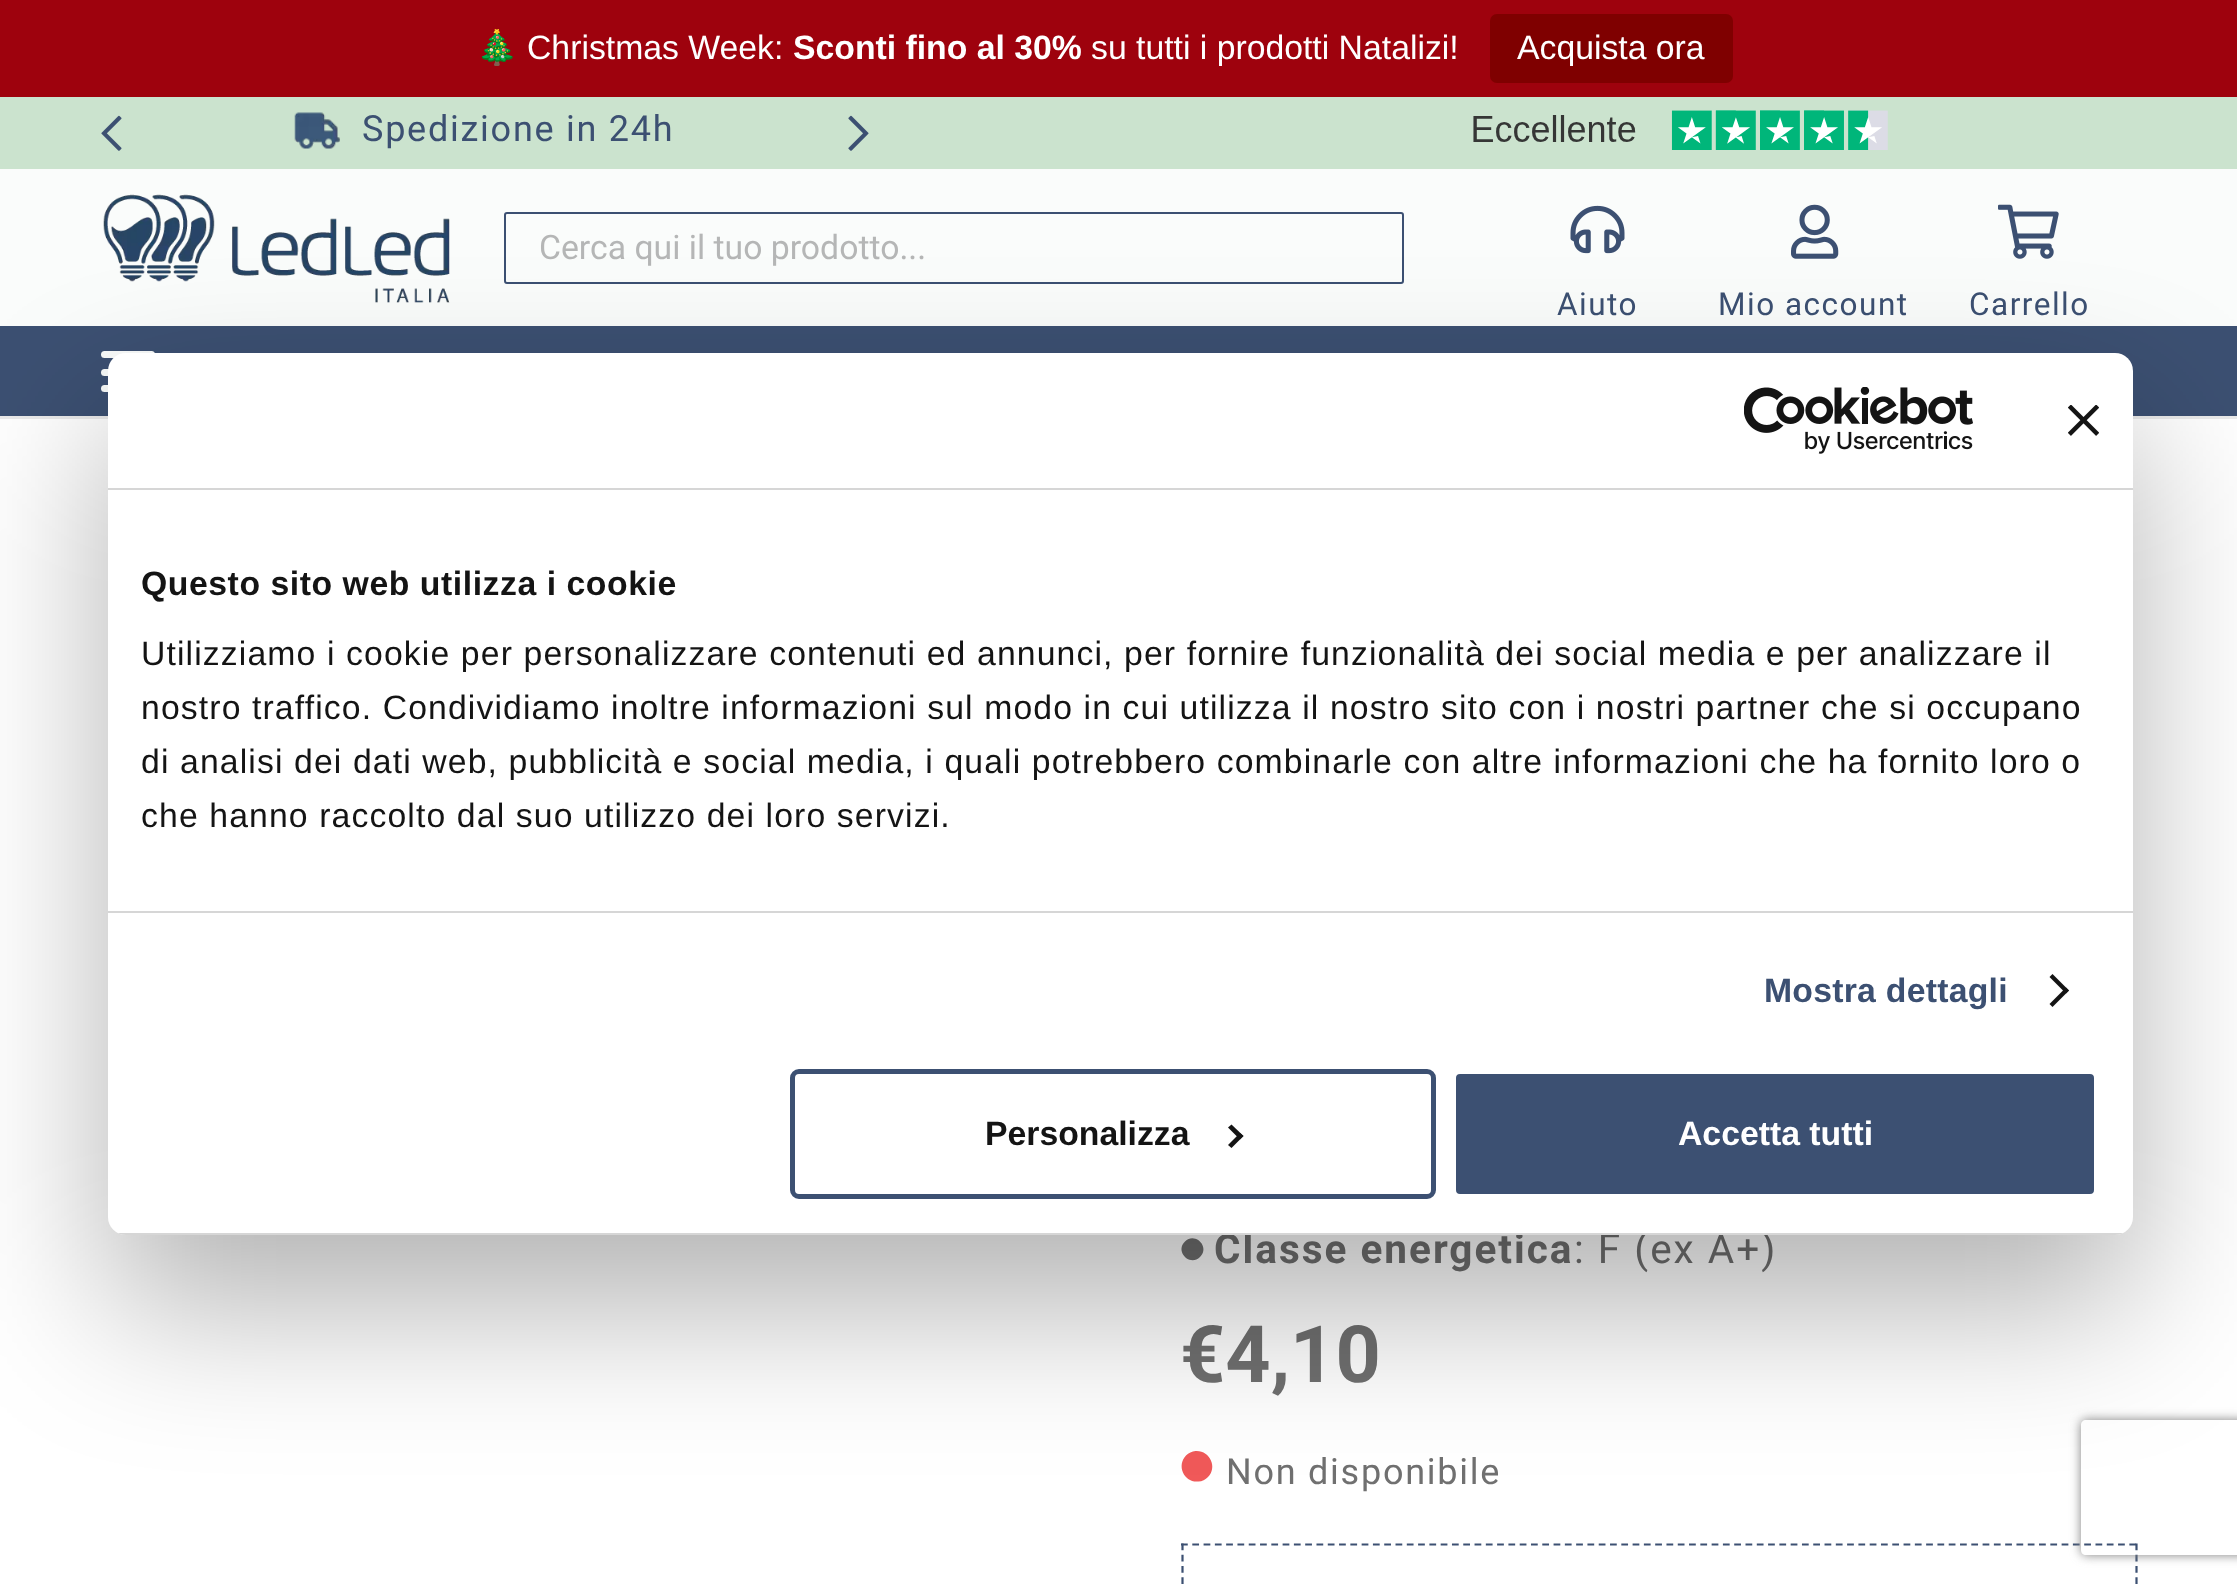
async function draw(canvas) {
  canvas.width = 2237;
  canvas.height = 1586;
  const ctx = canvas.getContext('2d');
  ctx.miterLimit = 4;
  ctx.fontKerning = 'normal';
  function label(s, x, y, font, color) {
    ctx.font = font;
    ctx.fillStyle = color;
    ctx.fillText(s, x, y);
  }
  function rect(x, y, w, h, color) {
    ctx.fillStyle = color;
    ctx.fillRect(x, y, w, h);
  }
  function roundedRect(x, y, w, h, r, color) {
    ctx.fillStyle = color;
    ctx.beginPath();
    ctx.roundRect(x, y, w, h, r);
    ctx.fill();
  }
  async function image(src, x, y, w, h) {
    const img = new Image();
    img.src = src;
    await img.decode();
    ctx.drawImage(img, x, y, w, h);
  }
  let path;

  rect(0, 0, 2237, 1586, '#fff');
  rect(0, 0, 2237, 97, '#9e020d');
  label('🎄', 476, 59, '33.75px Noto Color Emoji', '#fff');
  label('Christmas Week:', 527, 59, '33.75px Liberation Sans', '#fff');
  label('Sconti fino al 30%', 793, 59, 'bold 33.75px Liberation Sans', '#fff');
  label('su tutti i prodotti Natalizi!', 1091, 59, '33.75px Liberation Sans', '#fff');
  roundedRect(1490, 14, 243, 69, 7, '#7f0000');
  label('Acquista ora', 1517, 59, '33.75px Liberation Sans', '#fff');
  rect(0, 97, 2237, 72, '#cbe3ce');
  await image('assets/img1.png', 101, 115, 21, 36);
  await image('assets/img2.png', 294, 112, 46, 37);
  ctx.letterSpacing = '1.75px';
  label('Spedizione in 24h', 362, 141, '36px Roboto', '#3c5072');
  await image('assets/img3.png', 848, 115, 21, 36);
  await image('assets/img4.png', 1473, 110, 415, 40);
  rect(0, 169, 2237, 157, '#fafcfb');
  await image('assets/img5.png', 103, 194, 347, 109);
  ctx.beginPath();
  ctx.roundRect(505, 213, 898, 70, 2);
  ctx.strokeStyle = '#3c5072';
  ctx.lineWidth = 2;
  ctx.stroke();
  ctx.letterSpacing = '0px';
  label('Cerca qui il tuo prodotto...', 539, 259, '33.75px Roboto', '#b5b6b6');
  await image('assets/img6.png', 1570, 205, 55, 49);
  ctx.letterSpacing = '1.5px';
  label('Aiuto', 1557, 315, '31.5px Roboto', '#3c5072');
  await image('assets/img7.png', 1791, 204, 48, 55);
  label('Mio account', 1718, 315, '31.5px Roboto', '#3c5072');
  await image('assets/img8.png', 1998, 204, 61, 55);
  label('Carrello', 1969, 315, '31.5px Roboto', '#3c5072');
  ctx.fillStyle = '#ebebeb';
  path = new Path2D('M0 416V419H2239V329V416Z');
  ctx.fill(path);
  rect(0, 326, 2237, 90, '#3c5072');
  roundedRect(101, 369, 54, 7, 3.5, '#fafcfb');
  roundedRect(101, 351, 54, 7, 3.5, '#fafcfb');
  roundedRect(101, 385, 54, 7, 3.5, '#fafcfb');
  ctx.fillStyle = '#707070';
  path = new Path2D('M1185 1241.5C1195 1231.5 1210.5 1247 1200 1257C1190 1267 1174.5 1251.5 1185 1241.5Z');
  ctx.fill(path);
  ctx.letterSpacing = '2px';
  label('Classe energetica', 1214, 1263, 'bold 40.5px Roboto', '#707070');
  label(': F (ex A+)', 1574, 1263, '40.5px Roboto', '#707070');
  ctx.letterSpacing = '0px';
  label('€4,10', 1180, 1382, 'bold 79px Roboto', '#707070');
  ctx.fillStyle = '#f05959';
  path = new Path2D('M1186 1455.5C1188.5 1453 1192 1451.5 1195.5 1451C1209.5 1450 1218 1467 1208 1477C1205.5 1479.5 1202 1481.5 1198.5 1481.5C1184.5 1483 1176 1466 1186 1455.5Z');
  ctx.fill(path);
  ctx.letterSpacing = '1.75px';
  label('Non disponibile', 1226, 1484, '36px Roboto', '#707070');
  path = new Path2D('M1181 1544.5H2137.5');
  ctx.lineWidth = 2.2;
  ctx.setLineDash([6.75, 4.54]);
  ctx.stroke(path);
  path = new Path2D('M2136.5 1543.5V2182.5');
  ctx.stroke(path);
  path = new Path2D('M1182.5 1543.5V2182.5');
  ctx.stroke(path);
  ctx.fillStyle = '#0000004d';
  ctx.filter = 'blur(76.5px)';
  ctx.beginPath();
  ctx.roundRect(108, 425, 2025, 882, 18);
  ctx.fill();
  ctx.filter = 'none';
  roundedRect(108, 353, 2025, 882, 18, '#fff');
  rect(108, 488, 2025, 2, '#d6d6d6');
  await image('assets/img9.png', 1744, 387, 229, 67);
  await image('assets/img10.png', 2068, 405, 31, 31);
  rect(108, 911, 2025, 2, '#d6d6d6');
  ctx.letterSpacing = '0.55px';
  label('Questo sito web utilizza i cookie', 141, 595, 'bold 33.75px Liberation Sans', '#141414');
  ctx.letterSpacing = '1.12px';
  label('Utilizziamo i cookie per personalizzare contenuti ed annunci, per fornire funzionalità dei social media e per analizzare il', 141, 665, '33.75px Liberation Sans', '#141414');
  label('nostro traffico. Condividiamo inoltre informazioni sul modo in cui utilizza il nostro sito con i nostri partner che si occupano', 141, 719, '33.75px Liberation Sans', '#141414');
  label('di analisi dei dati web, pubblicità e social media, i quali potrebbero combinarle con altre informazioni che ha fornito loro o', 141, 773, '33.75px Liberation Sans', '#141414');
  label('che hanno raccolto dal suo utilizzo dei loro servizi.', 141, 827, '33.75px Liberation Sans', '#141414');
  ctx.letterSpacing = '0.25px';
  label('Mostra dettagli', 1764, 1002, 'bold 33.75px Liberation Sans', '#3c5072');
  ctx.fillStyle = '#141414';
  path = new Path2D('M2052.5 974L2069 990.5L2066 993.5L2049.5 977Z');
  ctx.fill(path);
  path = new Path2D('M2066 987.5L2069 990.5L2052.5 1007L2049.5 1004Z');
  ctx.fill(path);
  ctx.save();
  ctx.beginPath();
  ctx.roundRect(108, 353, 2025, 882, 18);
  ctx.clip();
  rect(118, 1233, 2005, 2, '#d6d6d6');
  ctx.restore();
  ctx.beginPath();
  ctx.roundRect(792.5, 1071.5, 641, 125, 6.5);
  ctx.lineWidth = 5;
  ctx.setLineDash([]);
  ctx.stroke();
  ctx.letterSpacing = '0px';
  label('Personalizza', 985, 1145, 'bold 33.75px Liberation Sans', '#141414');
  path = new Path2D('M1231.5 1124.5L1243.5 1136L1240 1139.5L1228 1127.5Z');
  ctx.fill(path);
  path = new Path2D('M1240 1133L1243.5 1136L1231.5 1148L1228 1145Z');
  ctx.fill(path);
  ctx.fillStyle = '#3c5072';
  ctx.beginPath();
  ctx.roundRect(1453.5, 1071.5, 643, 125, 6.5);
  ctx.fill();
  ctx.strokeStyle = '#fff';
  ctx.stroke();
  label('Accetta tutti', 1678, 1145, 'bold 33.75px Liberation Sans', '#fff');
  ctx.save();
  path = new Path2D('M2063 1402H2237V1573H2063ZM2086 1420H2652C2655 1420 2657 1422 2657 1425V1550C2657 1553 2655 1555 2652 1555H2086C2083 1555 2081 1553 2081 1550V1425C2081 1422 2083 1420 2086 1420Z');
  ctx.clip(path, 'evenodd');
  ctx.fillStyle = '#808080';
  ctx.filter = 'blur(5.5px)';
  ctx.beginPath();
  ctx.roundRect(2081, 1420, 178, 135, 5);
  ctx.fill();
  ctx.filter = 'none';
  ctx.restore();
}

draw(document.querySelector('canvas'));
